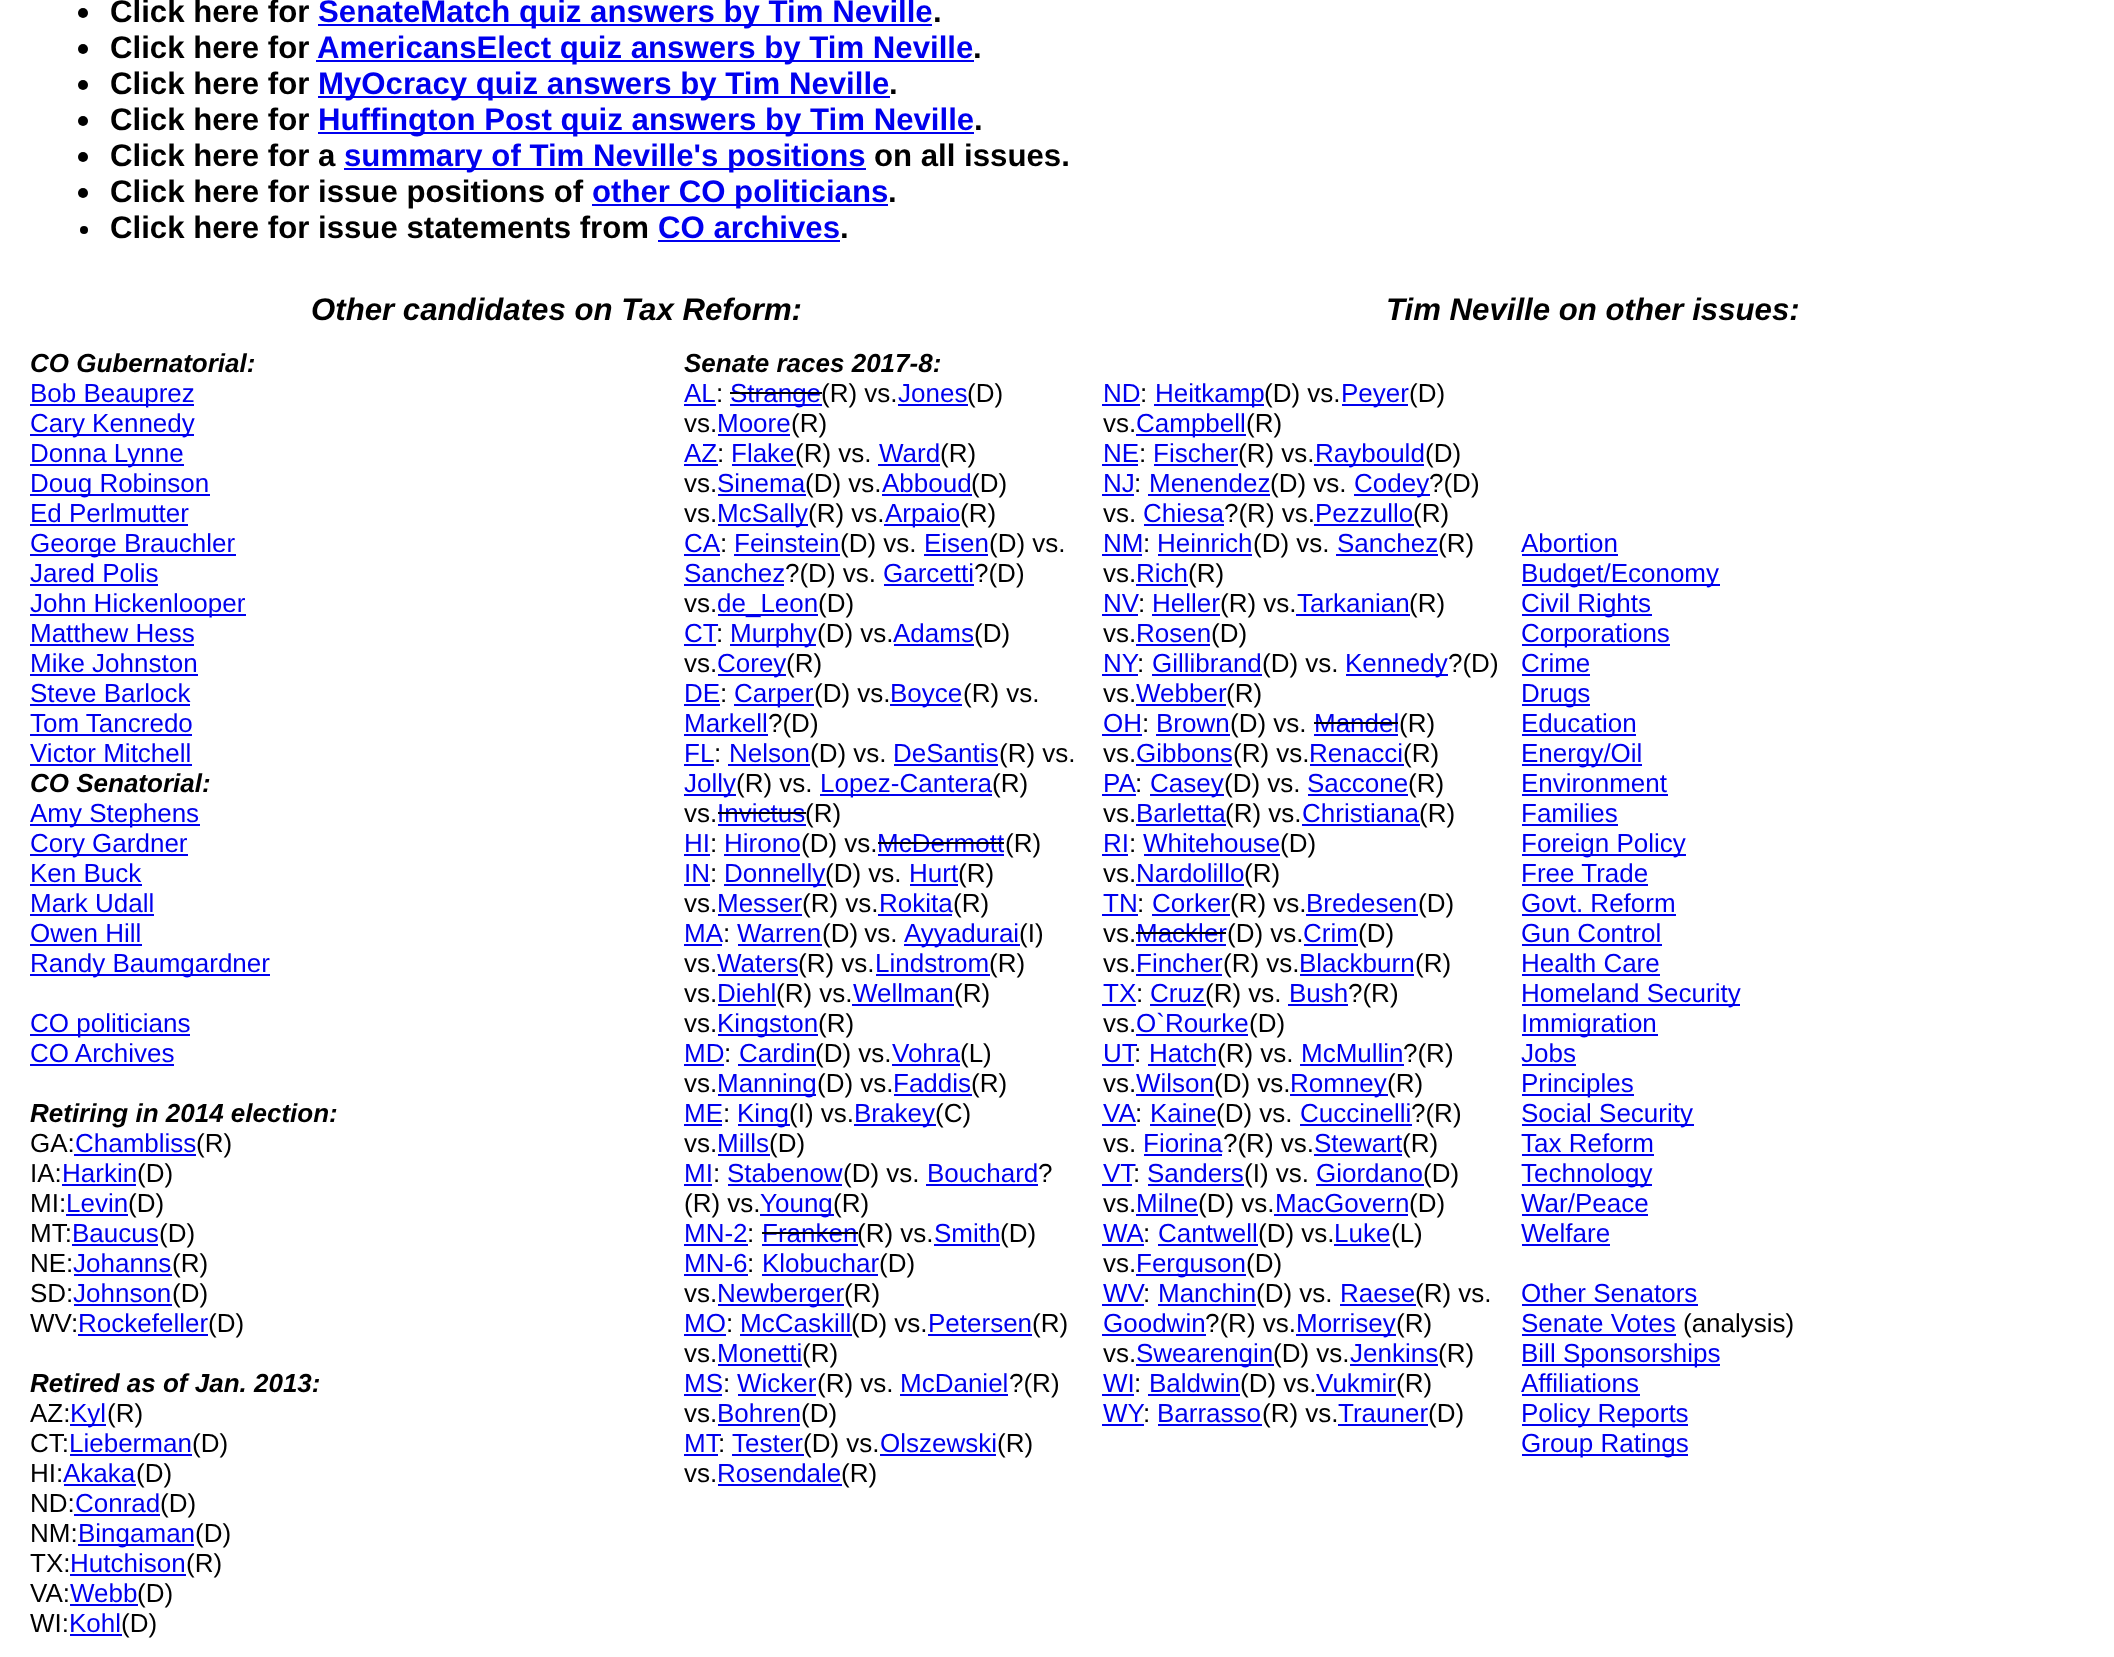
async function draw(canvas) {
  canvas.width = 2114;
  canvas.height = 1657;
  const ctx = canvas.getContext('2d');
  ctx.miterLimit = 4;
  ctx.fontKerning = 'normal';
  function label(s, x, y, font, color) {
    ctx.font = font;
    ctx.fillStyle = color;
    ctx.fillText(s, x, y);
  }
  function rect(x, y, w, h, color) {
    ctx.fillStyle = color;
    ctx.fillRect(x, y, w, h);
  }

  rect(0, 0, 2114, 1657, '#fff');
  ctx.fillStyle = '#000';
  ctx.beginPath();
  ctx.arc(83, 13, 5, 0, 2 * Math.PI);
  ctx.fill();
  label('Click here for', 110, 22, 'bold 31.2px Liberation Sans', '#000');
  rect(318, 24, 614, 2, '#00e');
  label('SenateMatch quiz answers by Tim Neville', 318, 22, 'bold 31.2px Liberation Sans', '#00e');
  label('.', 933, 22, 'bold 31.2px Liberation Sans', '#000');
  ctx.beginPath();
  ctx.arc(83, 49, 5, 0, 2 * Math.PI);
  ctx.fill();
  label('Click here for', 110, 58, 'bold 31.2px Liberation Sans', '#000');
  rect(316, 60, 658, 2, '#00e');
  label('AmericansElect quiz answers by Tim Neville', 317, 58, 'bold 31.2px Liberation Sans', '#00e');
  label('.', 973, 58, 'bold 31.2px Liberation Sans', '#000');
  ctx.beginPath();
  ctx.arc(83, 85, 5, 0, 2 * Math.PI);
  ctx.fill();
  label('Click here for', 110, 94, 'bold 31.2px Liberation Sans', '#000');
  rect(318, 96, 572, 2, '#00e');
  label('MyOcracy quiz answers by Tim Neville', 318, 94, 'bold 31.2px Liberation Sans', '#00e');
  label('.', 889, 94, 'bold 31.2px Liberation Sans', '#000');
  ctx.beginPath();
  ctx.arc(83, 121, 5, 0, 2 * Math.PI);
  ctx.fill();
  label('Click here for', 110, 130, 'bold 31.2px Liberation Sans', '#000');
  rect(318, 132, 656, 2, '#00e');
  label('Huffington Post quiz answers by Tim Neville', 318, 130, 'bold 31.2px Liberation Sans', '#00e');
  label('.', 974, 130, 'bold 31.2px Liberation Sans', '#000');
  ctx.beginPath();
  ctx.arc(83, 157, 5, 0, 2 * Math.PI);
  ctx.fill();
  label('Click here for a', 110, 166, 'bold 31.2px Liberation Sans', '#000');
  rect(344, 168, 522, 2, '#00e');
  label('summary of Tim Neville\'s positions', 344, 166, 'bold 31.2px Liberation Sans', '#00e');
  label('on all issues.', 874, 166, 'bold 31.2px Liberation Sans', '#000');
  ctx.beginPath();
  ctx.arc(83, 193, 5, 0, 2 * Math.PI);
  ctx.fill();
  label('Click here for issue positions of', 110, 202, 'bold 31.2px Liberation Sans', '#000');
  rect(592, 204, 296, 2, '#00e');
  label('other CO politicians', 592, 202, 'bold 31.2px Liberation Sans', '#00e');
  label('.', 888, 202, 'bold 31.2px Liberation Sans', '#000');
  ctx.beginPath();
  ctx.arc(84, 230, 4, 0, 2 * Math.PI);
  ctx.fill();
  label('Click here for issue statements from', 110, 238, 'bold 31.2px Liberation Sans', '#000');
  label('CO archives', 658, 238, 'bold 31.2px Liberation Sans', '#00e');
  label('.', 840, 238, 'bold 31.2px Liberation Sans', '#000');
  rect(658, 240, 182, 2, '#00e');
  label('Other candidates on Tax Reform:', 311, 320, 'italic bold 31.2px Liberation Sans', '#000');
  label('Tim Neville on other issues:', 1386, 320, 'italic bold 31.2px Liberation Sans', '#000');
  label('CO Gubernatorial:', 30, 372, 'italic bold 26px Liberation Sans', '#000');
  rect(30, 404, 164, 2, '#00e');
  label('Bob Beauprez', 30, 402, '26px Liberation Sans', '#00e');
  rect(30, 434, 164, 2, '#00e');
  label('Cary Kennedy', 30, 432, '26px Liberation Sans', '#00e');
  rect(30, 464, 154, 2, '#00e');
  label('Donna Lynne', 30, 462, '26px Liberation Sans', '#00e');
  rect(30, 494, 180, 2, '#00e');
  label('Doug Robinson', 30, 492, '26px Liberation Sans', '#00e');
  label('Ed Perlmutter', 30, 522, '26px Liberation Sans', '#00e');
  rect(30, 524, 158, 2, '#00e');
  rect(30, 554, 206, 2, '#00e');
  label('George Brauchler', 30, 552, '26px Liberation Sans', '#00e');
  label('Jared Polis', 30, 582, '26px Liberation Sans', '#00e');
  rect(30, 584, 128, 2, '#00e');
  rect(30, 614, 216, 2, '#00e');
  label('John Hickenlooper', 30, 612, '26px Liberation Sans', '#00e');
  label('Matthew Hess', 30, 642, '26px Liberation Sans', '#00e');
  rect(30, 644, 164, 2, '#00e');
  label('Mike Johnston', 30, 672, '26px Liberation Sans', '#00e');
  rect(30, 674, 168, 2, '#00e');
  label('Steve Barlock', 30, 702, '26px Liberation Sans', '#00e');
  rect(30, 704, 160, 2, '#00e');
  label('Tom Tancredo', 30, 732, '26px Liberation Sans', '#00e');
  rect(30, 734, 162, 2, '#00e');
  label('Victor Mitchell', 30, 762, '26px Liberation Sans', '#00e');
  rect(30, 764, 162, 2, '#00e');
  label('CO Senatorial:', 30, 792, 'italic bold 26px Liberation Sans', '#000');
  rect(30, 824, 170, 2, '#00e');
  label('Amy Stephens', 30, 822, '26px Liberation Sans', '#00e');
  rect(30, 854, 158, 2, '#00e');
  label('Cory Gardner', 30, 852, '26px Liberation Sans', '#00e');
  label('Ken Buck', 30, 882, '26px Liberation Sans', '#00e');
  rect(30, 884, 112, 2, '#00e');
  label('Mark Udall', 30, 912, '26px Liberation Sans', '#00e');
  rect(30, 914, 124, 2, '#00e');
  label('Owen Hill', 30, 942, '26px Liberation Sans', '#00e');
  rect(30, 944, 112, 2, '#00e');
  rect(30, 974, 240, 2, '#00e');
  label('Randy Baumgardner', 30, 972, '26px Liberation Sans', '#00e');
  rect(30, 1034, 160, 2, '#00e');
  label('CO politicians', 30, 1032, '26px Liberation Sans', '#00e');
  label('CO Archives', 30, 1062, '26px Liberation Sans', '#00e');
  rect(30, 1064, 144, 2, '#00e');
  label('Retiring in 2014 election:', 30, 1122, 'italic bold 26px Liberation Sans', '#000');
  label('GA:', 30, 1152, '26px Liberation Sans', '#000');
  label('Chambliss', 75, 1152, '26px Liberation Sans', '#00e');
  label('(R)', 196, 1152, '26px Liberation Sans', '#000');
  rect(74, 1154, 122, 2, '#00e');
  label('IA:', 30, 1182, '26px Liberation Sans', '#000');
  label('Harkin', 62, 1182, '26px Liberation Sans', '#00e');
  label('(D)', 137, 1182, '26px Liberation Sans', '#000');
  rect(62, 1184, 74, 2, '#00e');
  label('MI:', 30, 1212, '26px Liberation Sans', '#000');
  label('Levin', 66, 1212, '26px Liberation Sans', '#00e');
  label('(D)', 128, 1212, '26px Liberation Sans', '#000');
  rect(66, 1214, 62, 2, '#00e');
  label('MT:', 30, 1242, '26px Liberation Sans', '#000');
  label('Baucus', 72, 1242, '26px Liberation Sans', '#00e');
  label('(D)', 159, 1242, '26px Liberation Sans', '#000');
  rect(72, 1244, 86, 2, '#00e');
  label('NE:', 30, 1272, '26px Liberation Sans', '#000');
  label('Johanns', 73, 1272, '26px Liberation Sans', '#00e');
  label('(R)', 172, 1272, '26px Liberation Sans', '#000');
  rect(74, 1274, 98, 2, '#00e');
  label('SD:', 30, 1302, '26px Liberation Sans', '#000');
  label('Johnson', 73, 1302, '26px Liberation Sans', '#00e');
  label('(D)', 172, 1302, '26px Liberation Sans', '#000');
  rect(74, 1304, 98, 2, '#00e');
  label('WV:', 30, 1332, '26px Liberation Sans', '#000');
  label('Rockefeller', 78, 1332, '26px Liberation Sans', '#00e');
  label('(D)', 208, 1332, '26px Liberation Sans', '#000');
  rect(78, 1334, 130, 2, '#00e');
  label('Retired as of Jan. 2013:', 30, 1392, 'italic bold 26px Liberation Sans', '#000');
  label('AZ:', 30, 1422, '26px Liberation Sans', '#000');
  rect(70, 1424, 36, 2, '#00e');
  label('Kyl', 70, 1422, '26px Liberation Sans', '#00e');
  label('(R)', 107, 1422, '26px Liberation Sans', '#000');
  label('CT:', 30, 1452, '26px Liberation Sans', '#000');
  label('Lieberman', 69, 1452, '26px Liberation Sans', '#00e');
  label('(D)', 192, 1452, '26px Liberation Sans', '#000');
  rect(70, 1454, 122, 2, '#00e');
  label('HI:', 30, 1482, '26px Liberation Sans', '#000');
  label('Akaka', 63, 1482, '26px Liberation Sans', '#00e');
  label('(D)', 136, 1482, '26px Liberation Sans', '#000');
  rect(64, 1484, 72, 2, '#00e');
  label('ND:', 30, 1512, '26px Liberation Sans', '#000');
  label('Conrad', 75, 1512, '26px Liberation Sans', '#00e');
  label('(D)', 160, 1512, '26px Liberation Sans', '#000');
  rect(74, 1514, 86, 2, '#00e');
  label('NM:', 30, 1542, '26px Liberation Sans', '#000');
  rect(78, 1544, 116, 2, '#00e');
  label('Bingaman', 78, 1542, '26px Liberation Sans', '#00e');
  label('(D)', 195, 1542, '26px Liberation Sans', '#000');
  label('TX:', 30, 1572, '26px Liberation Sans', '#000');
  label('Hutchison', 70, 1572, '26px Liberation Sans', '#00e');
  label('(R)', 186, 1572, '26px Liberation Sans', '#000');
  rect(70, 1574, 116, 2, '#00e');
  label('VA:', 30, 1602, '26px Liberation Sans', '#000');
  label('Webb', 70, 1602, '26px Liberation Sans', '#00e');
  label('(D)', 137, 1602, '26px Liberation Sans', '#000');
  rect(70, 1604, 68, 2, '#00e');
  label('WI:', 30, 1632, '26px Liberation Sans', '#000');
  label('Kohl', 69, 1632, '26px Liberation Sans', '#00e');
  label('(D)', 121, 1632, '26px Liberation Sans', '#000');
  rect(70, 1634, 52, 2, '#00e');
  label('Senate races 2017-8:', 684, 372, 'italic bold 26px Liberation Sans', '#000');
  label('AL', 684, 402, '26px Liberation Sans', '#00e');
  label(':', 716, 402, '26px Liberation Sans', '#000');
  rect(684, 404, 32, 2, '#00e');
  rect(730, 404, 92, 2, '#00e');
  label('Strange', 730, 402, '26px Liberation Sans', '#00e');
  rect(730, 392, 92, 2, '#000');
  label('(R) vs.', 821, 402, '26px Liberation Sans', '#000');
  label('Jones', 898, 402, '26px Liberation Sans', '#00e');
  label('(D)', 967, 402, '26px Liberation Sans', '#000');
  rect(898, 404, 70, 2, '#00e');
  label('vs.', 684, 432, '26px Liberation Sans', '#000');
  label('Moore', 717, 432, '26px Liberation Sans', '#00e');
  label('(R)', 791, 432, '26px Liberation Sans', '#000');
  rect(718, 434, 72, 2, '#00e');
  label('AZ', 684, 462, '26px Liberation Sans', '#00e');
  label(':', 717, 462, '26px Liberation Sans', '#000');
  rect(684, 464, 34, 2, '#00e');
  label('Flake', 731, 462, '26px Liberation Sans', '#00e');
  label('(R) vs.', 795, 462, '26px Liberation Sans', '#000');
  rect(732, 464, 64, 2, '#00e');
  label('Ward', 879, 462, '26px Liberation Sans', '#00e');
  label('(R)', 940, 462, '26px Liberation Sans', '#000');
  rect(878, 464, 62, 2, '#00e');
  label('vs.', 684, 492, '26px Liberation Sans', '#000');
  label('Sinema', 717, 492, '26px Liberation Sans', '#00e');
  label('(D) vs.', 805, 492, '26px Liberation Sans', '#000');
  rect(718, 494, 88, 2, '#00e');
  label('Abboud', 882, 492, '26px Liberation Sans', '#00e');
  label('(D)', 971, 492, '26px Liberation Sans', '#000');
  rect(882, 494, 90, 2, '#00e');
  label('vs.', 684, 522, '26px Liberation Sans', '#000');
  rect(718, 524, 90, 2, '#00e');
  label('McSally', 717, 522, '26px Liberation Sans', '#00e');
  label('(R) vs.', 808, 522, '26px Liberation Sans', '#000');
  rect(884, 524, 76, 2, '#00e');
  label('Arpaio', 885, 522, '26px Liberation Sans', '#00e');
  label('(R)', 960, 522, '26px Liberation Sans', '#000');
  label('CA', 684, 552, '26px Liberation Sans', '#00e');
  label(':', 720, 552, '26px Liberation Sans', '#000');
  rect(684, 554, 36, 2, '#00e');
  label('Feinstein', 734, 552, '26px Liberation Sans', '#00e');
  label('(D) vs.', 840, 552, '26px Liberation Sans', '#000');
  rect(734, 554, 106, 2, '#00e');
  label('Eisen', 924, 552, '26px Liberation Sans', '#00e');
  label('(D) vs.', 989, 552, '26px Liberation Sans', '#000');
  rect(924, 554, 64, 2, '#00e');
  label('Sanchez', 684, 582, '26px Liberation Sans', '#00e');
  label('?(D) vs.', 785, 582, '26px Liberation Sans', '#000');
  rect(684, 584, 100, 2, '#00e');
  label('Garcetti', 883, 582, '26px Liberation Sans', '#00e');
  label('?(D)', 974, 582, '26px Liberation Sans', '#000');
  rect(884, 584, 90, 2, '#00e');
  label('vs.', 684, 612, '26px Liberation Sans', '#000');
  rect(718, 614, 100, 2, '#00e');
  label('de_Leon', 717, 612, '26px Liberation Sans', '#00e');
  label('(D)', 818, 612, '26px Liberation Sans', '#000');
  label('CT', 684, 642, '26px Liberation Sans', '#00e');
  label(':', 716, 642, '26px Liberation Sans', '#000');
  rect(684, 644, 32, 2, '#00e');
  rect(730, 644, 86, 2, '#00e');
  label('Murphy', 730, 642, '26px Liberation Sans', '#00e');
  label('(D) vs.', 817, 642, '26px Liberation Sans', '#000');
  label('Adams', 893, 642, '26px Liberation Sans', '#00e');
  label('(D)', 974, 642, '26px Liberation Sans', '#000');
  rect(894, 644, 80, 2, '#00e');
  label('vs.', 684, 672, '26px Liberation Sans', '#000');
  rect(718, 674, 68, 2, '#00e');
  label('Corey', 717, 672, '26px Liberation Sans', '#00e');
  label('(R)', 786, 672, '26px Liberation Sans', '#000');
  label('DE', 684, 702, '26px Liberation Sans', '#00e');
  label(':', 720, 702, '26px Liberation Sans', '#000');
  rect(684, 704, 36, 2, '#00e');
  rect(734, 704, 80, 2, '#00e');
  label('Carper', 734, 702, '26px Liberation Sans', '#00e');
  label('(D) vs.', 814, 702, '26px Liberation Sans', '#000');
  rect(890, 704, 72, 2, '#00e');
  label('Boyce', 890, 702, '26px Liberation Sans', '#00e');
  label('(R) vs.', 963, 702, '26px Liberation Sans', '#000');
  label('Markell', 684, 732, '26px Liberation Sans', '#00e');
  label('?(D)', 768, 732, '26px Liberation Sans', '#000');
  rect(684, 734, 84, 2, '#00e');
  label('FL', 684, 762, '26px Liberation Sans', '#00e');
  label(':', 714, 762, '26px Liberation Sans', '#000');
  rect(684, 764, 30, 2, '#00e');
  label('Nelson', 729, 762, '26px Liberation Sans', '#00e');
  label('(D) vs.', 810, 762, '26px Liberation Sans', '#000');
  rect(728, 764, 82, 2, '#00e');
  label('DeSantis', 893, 762, '26px Liberation Sans', '#00e');
  label('(R) vs.', 999, 762, '26px Liberation Sans', '#000');
  rect(894, 764, 104, 2, '#00e');
  rect(684, 794, 52, 2, '#00e');
  label('Jolly', 684, 792, '26px Liberation Sans', '#00e');
  label('(R) vs.', 736, 792, '26px Liberation Sans', '#000');
  rect(820, 794, 172, 2, '#00e');
  label('Lopez-Cantera', 820, 792, '26px Liberation Sans', '#00e');
  label('(R)', 992, 792, '26px Liberation Sans', '#000');
  label('vs.', 684, 822, '26px Liberation Sans', '#000');
  label('Invictus', 717, 822, '26px Liberation Sans', '#00e');
  rect(718, 812, 88, 2, '#000');
  label('(R)', 805, 822, '26px Liberation Sans', '#000');
  rect(718, 824, 88, 2, '#00e');
  label('HI', 684, 852, '26px Liberation Sans', '#00e');
  label(':', 710, 852, '26px Liberation Sans', '#000');
  rect(684, 854, 26, 2, '#00e');
  label('Hirono', 724, 852, '26px Liberation Sans', '#00e');
  label('(D) vs.', 801, 852, '26px Liberation Sans', '#000');
  rect(724, 854, 76, 2, '#00e');
  rect(878, 854, 126, 2, '#00e');
  label('McDermott', 877, 852, '26px Liberation Sans', '#00e');
  rect(878, 842, 126, 2, '#000');
  label('(R)', 1005, 852, '26px Liberation Sans', '#000');
  label('IN', 684, 882, '26px Liberation Sans', '#00e');
  label(':', 710, 882, '26px Liberation Sans', '#000');
  rect(684, 884, 26, 2, '#00e');
  rect(724, 884, 102, 2, '#00e');
  label('Donnelly', 724, 882, '26px Liberation Sans', '#00e');
  label('(D) vs.', 825, 882, '26px Liberation Sans', '#000');
  label('Hurt', 909, 882, '26px Liberation Sans', '#00e');
  label('(R)', 958, 882, '26px Liberation Sans', '#000');
  rect(910, 884, 48, 2, '#00e');
  label('vs.', 684, 912, '26px Liberation Sans', '#000');
  label('Messer', 717, 912, '26px Liberation Sans', '#00e');
  label('(R) vs.', 802, 912, '26px Liberation Sans', '#000');
  rect(718, 914, 84, 2, '#00e');
  rect(878, 914, 74, 2, '#00e');
  label('Rokita', 879, 912, '26px Liberation Sans', '#00e');
  label('(R)', 953, 912, '26px Liberation Sans', '#000');
  label('MA', 684, 942, '26px Liberation Sans', '#00e');
  label(':', 723, 942, '26px Liberation Sans', '#000');
  rect(684, 944, 38, 2, '#00e');
  label('Warren', 737, 942, '26px Liberation Sans', '#00e');
  ctx.wordSpacing = '-1px';
  label('(D) vs.', 822, 942, '26px Liberation Sans', '#000');
  rect(738, 944, 84, 2, '#00e');
  rect(904, 944, 116, 2, '#00e');
  ctx.wordSpacing = '0px';
  label('Ayyadurai', 904, 942, '26px Liberation Sans', '#00e');
  label('(I)', 1019, 942, '26px Liberation Sans', '#000');
  label('vs.', 684, 972, '26px Liberation Sans', '#000');
  label('Waters', 717, 972, '26px Liberation Sans', '#00e');
  label('(R) vs.', 798, 972, '26px Liberation Sans', '#000');
  rect(718, 974, 80, 2, '#00e');
  label('Lindstrom', 875, 972, '26px Liberation Sans', '#00e');
  label('(R)', 989, 972, '26px Liberation Sans', '#000');
  rect(876, 974, 114, 2, '#00e');
  label('vs.', 684, 1002, '26px Liberation Sans', '#000');
  label('Diehl', 717, 1002, '26px Liberation Sans', '#00e');
  label('(R) vs.', 776, 1002, '26px Liberation Sans', '#000');
  rect(718, 1004, 58, 2, '#00e');
  rect(852, 1004, 102, 2, '#00e');
  label('Wellman', 853, 1002, '26px Liberation Sans', '#00e');
  label('(R)', 954, 1002, '26px Liberation Sans', '#000');
  label('vs.', 684, 1032, '26px Liberation Sans', '#000');
  rect(718, 1034, 100, 2, '#00e');
  label('Kingston', 717, 1032, '26px Liberation Sans', '#00e');
  label('(R)', 818, 1032, '26px Liberation Sans', '#000');
  label('MD', 684, 1062, '26px Liberation Sans', '#00e');
  label(':', 724, 1062, '26px Liberation Sans', '#000');
  rect(684, 1064, 40, 2, '#00e');
  label('Cardin', 739, 1062, '26px Liberation Sans', '#00e');
  label('(D) vs.', 815, 1062, '26px Liberation Sans', '#000');
  rect(738, 1064, 78, 2, '#00e');
  label('Vohra', 892, 1062, '26px Liberation Sans', '#00e');
  label('(L)', 960, 1062, '26px Liberation Sans', '#000');
  rect(892, 1064, 68, 2, '#00e');
  label('vs.', 684, 1092, '26px Liberation Sans', '#000');
  rect(718, 1094, 98, 2, '#00e');
  label('Manning', 717, 1092, '26px Liberation Sans', '#00e');
  label('(D) vs.', 817, 1092, '26px Liberation Sans', '#000');
  label('Faddis', 893, 1092, '26px Liberation Sans', '#00e');
  label('(R)', 971, 1092, '26px Liberation Sans', '#000');
  rect(894, 1094, 78, 2, '#00e');
  label('ME', 684, 1122, '26px Liberation Sans', '#00e');
  label(':', 723, 1122, '26px Liberation Sans', '#000');
  rect(684, 1124, 38, 2, '#00e');
  rect(738, 1124, 52, 2, '#00e');
  label('King', 737, 1122, '26px Liberation Sans', '#00e');
  label('(I) vs.', 789, 1122, '26px Liberation Sans', '#000');
  rect(854, 1124, 82, 2, '#00e');
  label('Brakey', 854, 1122, '26px Liberation Sans', '#00e');
  label('(C)', 935, 1122, '26px Liberation Sans', '#000');
  label('vs.', 684, 1152, '26px Liberation Sans', '#000');
  label('Mills', 717, 1152, '26px Liberation Sans', '#00e');
  label('(D)', 769, 1152, '26px Liberation Sans', '#000');
  rect(718, 1154, 52, 2, '#00e');
  label('MI', 684, 1182, '26px Liberation Sans', '#00e');
  label(':', 713, 1182, '26px Liberation Sans', '#000');
  rect(684, 1184, 28, 2, '#00e');
  label('Stabenow', 727, 1182, '26px Liberation Sans', '#00e');
  label('(D) vs.', 843, 1182, '26px Liberation Sans', '#000');
  rect(728, 1184, 114, 2, '#00e');
  label('Bouchard', 927, 1182, '26px Liberation Sans', '#00e');
  rect(926, 1184, 112, 2, '#00e');
  label('?', 1038, 1182, '26px Liberation Sans', '#000');
  label('(R) vs.', 684, 1212, '26px Liberation Sans', '#000');
  rect(760, 1214, 74, 2, '#00e');
  label('Young', 760, 1212, '26px Liberation Sans', '#00e');
  label('(R)', 833, 1212, '26px Liberation Sans', '#000');
  label('MN-2', 684, 1242, '26px Liberation Sans', '#00e');
  label(':', 747, 1242, '26px Liberation Sans', '#000');
  rect(684, 1244, 64, 2, '#00e');
  label('Franken', 762, 1242, '26px Liberation Sans', '#00e');
  rect(762, 1232, 96, 2, '#000');
  label('(R) vs.', 857, 1242, '26px Liberation Sans', '#000');
  rect(762, 1244, 96, 2, '#00e');
  label('Smith', 934, 1242, '26px Liberation Sans', '#00e');
  label('(D)', 1000, 1242, '26px Liberation Sans', '#000');
  rect(934, 1244, 66, 2, '#00e');
  label('MN-6', 684, 1272, '26px Liberation Sans', '#00e');
  label(':', 747, 1272, '26px Liberation Sans', '#000');
  rect(684, 1274, 64, 2, '#00e');
  label('Klobuchar', 762, 1272, '26px Liberation Sans', '#00e');
  label('(D)', 879, 1272, '26px Liberation Sans', '#000');
  rect(762, 1274, 116, 2, '#00e');
  label('vs.', 684, 1302, '26px Liberation Sans', '#000');
  rect(718, 1304, 126, 2, '#00e');
  label('Newberger', 717, 1302, '26px Liberation Sans', '#00e');
  label('(R)', 844, 1302, '26px Liberation Sans', '#000');
  label('MO', 684, 1332, '26px Liberation Sans', '#00e');
  label(':', 726, 1332, '26px Liberation Sans', '#000');
  rect(684, 1334, 42, 2, '#00e');
  label('McCaskill', 740, 1332, '26px Liberation Sans', '#00e');
  label('(D) vs.', 851, 1332, '26px Liberation Sans', '#000');
  rect(740, 1334, 112, 2, '#00e');
  label('Petersen', 928, 1332, '26px Liberation Sans', '#00e');
  label('(R)', 1032, 1332, '26px Liberation Sans', '#000');
  rect(928, 1334, 104, 2, '#00e');
  label('vs.', 684, 1362, '26px Liberation Sans', '#000');
  label('Monetti', 717, 1362, '26px Liberation Sans', '#00e');
  label('(R)', 802, 1362, '26px Liberation Sans', '#000');
  rect(718, 1364, 84, 2, '#00e');
  label('MS', 684, 1392, '26px Liberation Sans', '#00e');
  label(':', 723, 1392, '26px Liberation Sans', '#000');
  rect(684, 1394, 38, 2, '#00e');
  label('Wicker', 737, 1392, '26px Liberation Sans', '#00e');
  label('(R) vs.', 817, 1392, '26px Liberation Sans', '#000');
  rect(738, 1394, 78, 2, '#00e');
  label('McDaniel', 900, 1392, '26px Liberation Sans', '#00e');
  label('?(R)', 1009, 1392, '26px Liberation Sans', '#000');
  rect(900, 1394, 108, 2, '#00e');
  label('vs.', 684, 1422, '26px Liberation Sans', '#000');
  label('Bohren', 717, 1422, '26px Liberation Sans', '#00e');
  label('(D)', 801, 1422, '26px Liberation Sans', '#000');
  rect(718, 1424, 82, 2, '#00e');
  label('MT', 684, 1452, '26px Liberation Sans', '#00e');
  label(':', 718, 1452, '26px Liberation Sans', '#000');
  rect(684, 1454, 34, 2, '#00e');
  label('Tester', 732, 1452, '26px Liberation Sans', '#00e');
  label('(D) vs.', 803, 1452, '26px Liberation Sans', '#000');
  rect(732, 1454, 72, 2, '#00e');
  rect(880, 1454, 116, 2, '#00e');
  label('Olszewski', 880, 1452, '26px Liberation Sans', '#00e');
  label('(R)', 997, 1452, '26px Liberation Sans', '#000');
  label('vs.', 684, 1482, '26px Liberation Sans', '#000');
  label('Rosendale', 717, 1482, '26px Liberation Sans', '#00e');
  label('(R)', 841, 1482, '26px Liberation Sans', '#000');
  rect(718, 1484, 124, 2, '#00e');
  label('ND', 1103, 402, '26px Liberation Sans', '#00e');
  label(':', 1140, 402, '26px Liberation Sans', '#000');
  rect(1102, 404, 38, 2, '#00e');
  rect(1154, 404, 110, 2, '#00e');
  label('Heitkamp', 1155, 402, '26px Liberation Sans', '#00e');
  label('(D) vs.', 1264, 402, '26px Liberation Sans', '#000');
  rect(1342, 404, 66, 2, '#00e');
  label('Peyer', 1341, 402, '26px Liberation Sans', '#00e');
  label('(D)', 1409, 402, '26px Liberation Sans', '#000');
  label('vs.', 1103, 432, '26px Liberation Sans', '#000');
  rect(1136, 434, 110, 2, '#00e');
  label('Campbell', 1136, 432, '26px Liberation Sans', '#00e');
  label('(R)', 1246, 432, '26px Liberation Sans', '#000');
  label('NE', 1103, 462, '26px Liberation Sans', '#00e');
  label(':', 1139, 462, '26px Liberation Sans', '#000');
  rect(1102, 464, 36, 2, '#00e');
  label('Fischer', 1153, 462, '26px Liberation Sans', '#00e');
  label('(R) vs.', 1238, 462, '26px Liberation Sans', '#000');
  rect(1154, 464, 84, 2, '#00e');
  rect(1314, 464, 110, 2, '#00e');
  label('Raybould', 1315, 462, '26px Liberation Sans', '#00e');
  label('(D)', 1425, 462, '26px Liberation Sans', '#000');
  label('NJ', 1103, 492, '26px Liberation Sans', '#00e');
  label(':', 1134, 492, '26px Liberation Sans', '#000');
  rect(1102, 494, 32, 2, '#00e');
  label('Menendez', 1149, 492, '26px Liberation Sans', '#00e');
  label('(D) vs.', 1270, 492, '26px Liberation Sans', '#000');
  rect(1148, 494, 122, 2, '#00e');
  rect(1354, 494, 76, 2, '#00e');
  label('Codey', 1354, 492, '26px Liberation Sans', '#00e');
  label('?(D)', 1429, 492, '26px Liberation Sans', '#000');
  label('vs.', 1103, 522, '26px Liberation Sans', '#000');
  label('Chiesa', 1143, 522, '26px Liberation Sans', '#00e');
  label('?(R) vs.', 1224, 522, '26px Liberation Sans', '#000');
  rect(1144, 524, 80, 2, '#00e');
  label('Pezzullo', 1315, 522, '26px Liberation Sans', '#00e');
  label('(R)', 1413, 522, '26px Liberation Sans', '#000');
  rect(1314, 524, 100, 2, '#00e');
  label('NM', 1103, 552, '26px Liberation Sans', '#00e');
  label(':', 1143, 552, '26px Liberation Sans', '#000');
  rect(1102, 554, 40, 2, '#00e');
  label('Heinrich', 1157, 552, '26px Liberation Sans', '#00e');
  label('(D) vs.', 1253, 552, '26px Liberation Sans', '#000');
  rect(1158, 554, 94, 2, '#00e');
  label('Sanchez', 1337, 552, '26px Liberation Sans', '#00e');
  label('(R)', 1438, 552, '26px Liberation Sans', '#000');
  rect(1336, 554, 102, 2, '#00e');
  label('vs.', 1103, 582, '26px Liberation Sans', '#000');
  label('Rich', 1136, 582, '26px Liberation Sans', '#00e');
  label('(R)', 1188, 582, '26px Liberation Sans', '#000');
  rect(1136, 584, 52, 2, '#00e');
  label('NV', 1103, 612, '26px Liberation Sans', '#00e');
  label(':', 1138, 612, '26px Liberation Sans', '#000');
  rect(1102, 614, 36, 2, '#00e');
  label('Heller', 1152, 612, '26px Liberation Sans', '#00e');
  label('(R) vs.', 1220, 612, '26px Liberation Sans', '#000');
  rect(1152, 614, 68, 2, '#00e');
  rect(1296, 614, 114, 2, '#00e');
  label('Tarkanian', 1297, 612, '26px Liberation Sans', '#00e');
  label('(R)', 1409, 612, '26px Liberation Sans', '#000');
  label('vs.', 1103, 642, '26px Liberation Sans', '#000');
  rect(1136, 644, 74, 2, '#00e');
  label('Rosen', 1136, 642, '26px Liberation Sans', '#00e');
  label('(D)', 1211, 642, '26px Liberation Sans', '#000');
  label('NY', 1103, 672, '26px Liberation Sans', '#00e');
  label(':', 1137, 672, '26px Liberation Sans', '#000');
  rect(1102, 674, 36, 2, '#00e');
  label('Gillibrand', 1152, 672, '26px Liberation Sans', '#00e');
  label('(D) vs.', 1262, 672, '26px Liberation Sans', '#000');
  rect(1152, 674, 110, 2, '#00e');
  rect(1346, 674, 102, 2, '#00e');
  label('Kennedy', 1345, 672, '26px Liberation Sans', '#00e');
  label('?(D)', 1448, 672, '26px Liberation Sans', '#000');
  label('vs.', 1103, 702, '26px Liberation Sans', '#000');
  label('Webber', 1136, 702, '26px Liberation Sans', '#00e');
  label('(R)', 1226, 702, '26px Liberation Sans', '#000');
  rect(1136, 704, 90, 2, '#00e');
  label('OH', 1103, 732, '26px Liberation Sans', '#00e');
  label(':', 1142, 732, '26px Liberation Sans', '#000');
  rect(1102, 734, 40, 2, '#00e');
  label('Brown', 1156, 732, '26px Liberation Sans', '#00e');
  label('(D) vs.', 1230, 732, '26px Liberation Sans', '#000');
  rect(1156, 734, 74, 2, '#00e');
  label('Mandel', 1314, 732, '26px Liberation Sans', '#00e');
  rect(1314, 722, 84, 2, '#000');
  label('(R)', 1399, 732, '26px Liberation Sans', '#000');
  rect(1314, 734, 84, 2, '#00e');
  label('vs.', 1103, 762, '26px Liberation Sans', '#000');
  rect(1136, 764, 96, 2, '#00e');
  label('Gibbons', 1136, 762, '26px Liberation Sans', '#00e');
  label('(R) vs.', 1233, 762, '26px Liberation Sans', '#000');
  label('Renacci', 1309, 762, '26px Liberation Sans', '#00e');
  label('(R)', 1403, 762, '26px Liberation Sans', '#000');
  rect(1310, 764, 94, 2, '#00e');
  label('PA', 1103, 792, '26px Liberation Sans', '#00e');
  label(':', 1135, 792, '26px Liberation Sans', '#000');
  rect(1102, 794, 34, 2, '#00e');
  rect(1150, 794, 74, 2, '#00e');
  label('Casey', 1150, 792, '26px Liberation Sans', '#00e');
  label('(D) vs.', 1224, 792, '26px Liberation Sans', '#000');
  label('Saccone', 1307, 792, '26px Liberation Sans', '#00e');
  label('(R)', 1408, 792, '26px Liberation Sans', '#000');
  rect(1308, 794, 100, 2, '#00e');
  label('vs.', 1103, 822, '26px Liberation Sans', '#000');
  label('Barletta', 1136, 822, '26px Liberation Sans', '#00e');
  label('(R) vs.', 1225, 822, '26px Liberation Sans', '#000');
  rect(1136, 824, 90, 2, '#00e');
  label('Christiana', 1302, 822, '26px Liberation Sans', '#00e');
  label('(R)', 1419, 822, '26px Liberation Sans', '#000');
  rect(1302, 824, 118, 2, '#00e');
  label('RI', 1103, 852, '26px Liberation Sans', '#00e');
  label(':', 1129, 852, '26px Liberation Sans', '#000');
  rect(1102, 854, 26, 2, '#00e');
  label('Whitehouse', 1143, 852, '26px Liberation Sans', '#00e');
  label('(D)', 1280, 852, '26px Liberation Sans', '#000');
  rect(1144, 854, 136, 2, '#00e');
  label('vs.', 1103, 882, '26px Liberation Sans', '#000');
  label('Nardolillo', 1136, 882, '26px Liberation Sans', '#00e');
  label('(R)', 1244, 882, '26px Liberation Sans', '#000');
  rect(1136, 884, 108, 2, '#00e');
  label('TN', 1103, 912, '26px Liberation Sans', '#00e');
  label(':', 1137, 912, '26px Liberation Sans', '#000');
  rect(1102, 914, 36, 2, '#00e');
  label('Corker', 1152, 912, '26px Liberation Sans', '#00e');
  label('(R) vs.', 1230, 912, '26px Liberation Sans', '#000');
  rect(1152, 914, 78, 2, '#00e');
  label('Bredesen', 1306, 912, '26px Liberation Sans', '#00e');
  label('(D)', 1418, 912, '26px Liberation Sans', '#000');
  rect(1306, 914, 112, 2, '#00e');
  label('vs.', 1103, 942, '26px Liberation Sans', '#000');
  rect(1136, 944, 90, 2, '#00e');
  label('Mackler', 1136, 942, '26px Liberation Sans', '#00e');
  rect(1136, 932, 90, 2, '#000');
  label('(D) vs.', 1227, 942, '26px Liberation Sans', '#000');
  label('Crim', 1303, 942, '26px Liberation Sans', '#00e');
  label('(D)', 1358, 942, '26px Liberation Sans', '#000');
  rect(1304, 944, 54, 2, '#00e');
  label('vs.', 1103, 972, '26px Liberation Sans', '#000');
  rect(1136, 974, 86, 2, '#00e');
  label('Fincher', 1136, 972, '26px Liberation Sans', '#00e');
  label('(R) vs.', 1223, 972, '26px Liberation Sans', '#000');
  label('Blackburn', 1299, 972, '26px Liberation Sans', '#00e');
  label('(R)', 1415, 972, '26px Liberation Sans', '#000');
  rect(1300, 974, 114, 2, '#00e');
  label('TX', 1103, 1002, '26px Liberation Sans', '#00e');
  label(':', 1136, 1002, '26px Liberation Sans', '#000');
  rect(1102, 1004, 34, 2, '#00e');
  label('Cruz', 1150, 1002, '26px Liberation Sans', '#00e');
  label('(R) vs.', 1205, 1002, '26px Liberation Sans', '#000');
  rect(1150, 1004, 56, 2, '#00e');
  label('Bush', 1289, 1002, '26px Liberation Sans', '#00e');
  label('?(R)', 1348, 1002, '26px Liberation Sans', '#000');
  rect(1288, 1004, 60, 2, '#00e');
  label('vs.', 1103, 1032, '26px Liberation Sans', '#000');
  rect(1136, 1034, 112, 2, '#00e');
  label('O`Rourke', 1136, 1032, '26px Liberation Sans', '#00e');
  label('(D)', 1249, 1032, '26px Liberation Sans', '#000');
  label('UT', 1103, 1062, '26px Liberation Sans', '#00e');
  label(':', 1134, 1062, '26px Liberation Sans', '#000');
  rect(1102, 1064, 32, 2, '#00e');
  label('Hatch', 1149, 1062, '26px Liberation Sans', '#00e');
  label('(R) vs.', 1217, 1062, '26px Liberation Sans', '#000');
  rect(1148, 1064, 68, 2, '#00e');
  label('McMullin', 1301, 1062, '26px Liberation Sans', '#00e');
  label('?(R)', 1403, 1062, '26px Liberation Sans', '#000');
  rect(1300, 1064, 104, 2, '#00e');
  label('vs.', 1103, 1092, '26px Liberation Sans', '#000');
  label('Wilson', 1136, 1092, '26px Liberation Sans', '#00e');
  label('(D) vs.', 1214, 1092, '26px Liberation Sans', '#000');
  rect(1136, 1094, 78, 2, '#00e');
  rect(1290, 1094, 98, 2, '#00e');
  label('Romney', 1290, 1092, '26px Liberation Sans', '#00e');
  label('(R)', 1387, 1092, '26px Liberation Sans', '#000');
  label('VA', 1103, 1122, '26px Liberation Sans', '#00e');
  label(':', 1135, 1122, '26px Liberation Sans', '#000');
  rect(1102, 1124, 34, 2, '#00e');
  label('Kaine', 1150, 1122, '26px Liberation Sans', '#00e');
  label('(D) vs.', 1216, 1122, '26px Liberation Sans', '#000');
  rect(1150, 1124, 66, 2, '#00e');
  label('Cuccinelli', 1300, 1122, '26px Liberation Sans', '#00e');
  label('?(R)', 1411, 1122, '26px Liberation Sans', '#000');
  rect(1300, 1124, 112, 2, '#00e');
  label('vs.', 1103, 1152, '26px Liberation Sans', '#000');
  label('Fiorina', 1143, 1152, '26px Liberation Sans', '#00e');
  label('?(R) vs.', 1223, 1152, '26px Liberation Sans', '#000');
  rect(1144, 1154, 78, 2, '#00e');
  label('Stewart', 1314, 1152, '26px Liberation Sans', '#00e');
  label('(R)', 1402, 1152, '26px Liberation Sans', '#000');
  rect(1314, 1154, 88, 2, '#00e');
  label('VT', 1103, 1182, '26px Liberation Sans', '#00e');
  label(':', 1133, 1182, '26px Liberation Sans', '#000');
  rect(1102, 1184, 30, 2, '#00e');
  label('Sanders', 1147, 1182, '26px Liberation Sans', '#00e');
  label('(I) vs.', 1244, 1182, '26px Liberation Sans', '#000');
  rect(1148, 1184, 96, 2, '#00e');
  label('Giordano', 1316, 1182, '26px Liberation Sans', '#00e');
  label('(D)', 1423, 1182, '26px Liberation Sans', '#000');
  rect(1316, 1184, 108, 2, '#00e');
  label('vs.', 1103, 1212, '26px Liberation Sans', '#000');
  label('Milne', 1136, 1212, '26px Liberation Sans', '#00e');
  label('(D) vs.', 1198, 1212, '26px Liberation Sans', '#000');
  rect(1136, 1214, 62, 2, '#00e');
  rect(1274, 1214, 134, 2, '#00e');
  label('MacGovern', 1275, 1212, '26px Liberation Sans', '#00e');
  label('(D)', 1409, 1212, '26px Liberation Sans', '#000');
  label('WA', 1103, 1242, '26px Liberation Sans', '#00e');
  label(':', 1143, 1242, '26px Liberation Sans', '#000');
  rect(1102, 1244, 42, 2, '#00e');
  label('Cantwell', 1158, 1242, '26px Liberation Sans', '#00e');
  label('(D) vs.', 1258, 1242, '26px Liberation Sans', '#000');
  rect(1158, 1244, 100, 2, '#00e');
  rect(1334, 1244, 56, 2, '#00e');
  label('Luke', 1334, 1242, '26px Liberation Sans', '#00e');
  label('(L)', 1391, 1242, '26px Liberation Sans', '#000');
  label('vs.', 1103, 1272, '26px Liberation Sans', '#000');
  rect(1136, 1274, 110, 2, '#00e');
  label('Ferguson', 1136, 1272, '26px Liberation Sans', '#00e');
  label('(D)', 1246, 1272, '26px Liberation Sans', '#000');
  label('WV', 1103, 1302, '26px Liberation Sans', '#00e');
  label(':', 1143, 1302, '26px Liberation Sans', '#000');
  rect(1102, 1304, 42, 2, '#00e');
  label('Manchin', 1158, 1302, '26px Liberation Sans', '#00e');
  label('(D) vs.', 1256, 1302, '26px Liberation Sans', '#000');
  rect(1158, 1304, 98, 2, '#00e');
  label('Raese', 1340, 1302, '26px Liberation Sans', '#00e');
  label('(R) vs.', 1415, 1302, '26px Liberation Sans', '#000');
  rect(1340, 1304, 76, 2, '#00e');
  label('Goodwin', 1103, 1332, '26px Liberation Sans', '#00e');
  label('?(R) vs.', 1205, 1332, '26px Liberation Sans', '#000');
  rect(1102, 1334, 104, 2, '#00e');
  rect(1296, 1334, 100, 2, '#00e');
  label('Morrisey', 1296, 1332, '26px Liberation Sans', '#00e');
  label('(R)', 1396, 1332, '26px Liberation Sans', '#000');
  label('vs.', 1103, 1362, '26px Liberation Sans', '#000');
  rect(1136, 1364, 138, 2, '#00e');
  label('Swearengin', 1136, 1362, '26px Liberation Sans', '#00e');
  label('(D) vs.', 1273, 1362, '26px Liberation Sans', '#000');
  label('Jenkins', 1350, 1362, '26px Liberation Sans', '#00e');
  label('(R)', 1438, 1362, '26px Liberation Sans', '#000');
  rect(1350, 1364, 88, 2, '#00e');
  label('WI', 1103, 1392, '26px Liberation Sans', '#00e');
  label(':', 1134, 1392, '26px Liberation Sans', '#000');
  rect(1102, 1394, 32, 2, '#00e');
  label('Baldwin', 1149, 1392, '26px Liberation Sans', '#00e');
  label('(D) vs.', 1240, 1392, '26px Liberation Sans', '#000');
  rect(1148, 1394, 92, 2, '#00e');
  rect(1316, 1394, 80, 2, '#00e');
  label('Vukmir', 1316, 1392, '26px Liberation Sans', '#00e');
  label('(R)', 1396, 1392, '26px Liberation Sans', '#000');
  label('WY', 1103, 1422, '26px Liberation Sans', '#00e');
  label(':', 1143, 1422, '26px Liberation Sans', '#000');
  rect(1102, 1424, 42, 2, '#00e');
  label('Barrasso', 1157, 1422, '26px Liberation Sans', '#00e');
  label('(R) vs.', 1262, 1422, '26px Liberation Sans', '#000');
  rect(1158, 1424, 104, 2, '#00e');
  label('Trauner', 1338, 1422, '26px Liberation Sans', '#00e');
  label('(D)', 1428, 1422, '26px Liberation Sans', '#000');
  rect(1338, 1424, 90, 2, '#00e');
  label('Abortion', 1521, 552, '26px Liberation Sans', '#00e');
  rect(1522, 554, 96, 2, '#00e');
  rect(1522, 584, 198, 2, '#00e');
  label('Budget/Economy', 1521, 582, '26px Liberation Sans', '#00e');
  rect(1522, 614, 130, 2, '#00e');
  label('Civil Rights', 1521, 612, '26px Liberation Sans', '#00e');
  rect(1522, 644, 148, 2, '#00e');
  label('Corporations', 1521, 642, '26px Liberation Sans', '#00e');
  label('Crime', 1521, 672, '26px Liberation Sans', '#00e');
  rect(1522, 674, 68, 2, '#00e');
  rect(1522, 704, 68, 2, '#00e');
  label('Drugs', 1521, 702, '26px Liberation Sans', '#00e');
  label('Education', 1521, 732, '26px Liberation Sans', '#00e');
  rect(1522, 734, 114, 2, '#00e');
  rect(1522, 764, 120, 2, '#00e');
  label('Energy/Oil', 1521, 762, '26px Liberation Sans', '#00e');
  label('Environment', 1521, 792, '26px Liberation Sans', '#00e');
  rect(1522, 794, 146, 2, '#00e');
  label('Families', 1521, 822, '26px Liberation Sans', '#00e');
  rect(1522, 824, 96, 2, '#00e');
  rect(1522, 854, 164, 2, '#00e');
  label('Foreign Policy', 1521, 852, '26px Liberation Sans', '#00e');
  label('Free Trade', 1521, 882, '26px Liberation Sans', '#00e');
  rect(1522, 884, 126, 2, '#00e');
  label('Govt. Reform', 1521, 912, '26px Liberation Sans', '#00e');
  rect(1522, 914, 154, 2, '#00e');
  label('Gun Control', 1521, 942, '26px Liberation Sans', '#00e');
  rect(1522, 944, 140, 2, '#00e');
  label('Health Care', 1521, 972, '26px Liberation Sans', '#00e');
  rect(1522, 974, 138, 2, '#00e');
  rect(1522, 1004, 218, 2, '#00e');
  label('Homeland Security', 1521, 1002, '26px Liberation Sans', '#00e');
  rect(1522, 1034, 136, 2, '#00e');
  label('Immigration', 1521, 1032, '26px Liberation Sans', '#00e');
  label('Jobs', 1521, 1062, '26px Liberation Sans', '#00e');
  rect(1522, 1064, 54, 2, '#00e');
  rect(1522, 1094, 112, 2, '#00e');
  label('Principles', 1521, 1092, '26px Liberation Sans', '#00e');
  rect(1522, 1124, 172, 2, '#00e');
  label('Social Security', 1521, 1122, '26px Liberation Sans', '#00e');
  label('Tax Reform', 1521, 1152, '26px Liberation Sans', '#00e');
  rect(1522, 1154, 132, 2, '#00e');
  rect(1522, 1184, 130, 2, '#00e');
  label('Technology', 1521, 1182, '26px Liberation Sans', '#00e');
  label('War/Peace', 1521, 1212, '26px Liberation Sans', '#00e');
  rect(1522, 1214, 126, 2, '#00e');
  label('Welfare', 1521, 1242, '26px Liberation Sans', '#00e');
  rect(1522, 1244, 88, 2, '#00e');
  label('Other Senators', 1521, 1302, '26px Liberation Sans', '#00e');
  rect(1522, 1304, 176, 2, '#00e');
  label('Senate Votes', 1521, 1332, '26px Liberation Sans', '#00e');
  rect(1522, 1334, 154, 2, '#00e');
  label('(analysis)', 1683, 1332, '26px Liberation Sans', '#000');
  rect(1522, 1364, 198, 2, '#00e');
  label('Bill Sponsorships', 1521, 1362, '26px Liberation Sans', '#00e');
  label('Affiliations', 1521, 1392, '26px Liberation Sans', '#00e');
  rect(1522, 1394, 118, 2, '#00e');
  rect(1522, 1424, 166, 2, '#00e');
  label('Policy Reports', 1521, 1422, '26px Liberation Sans', '#00e');
  rect(1522, 1454, 166, 2, '#00e');
  label('Group Ratings', 1521, 1452, '26px Liberation Sans', '#00e');
}

draw(document.querySelector('canvas'));
